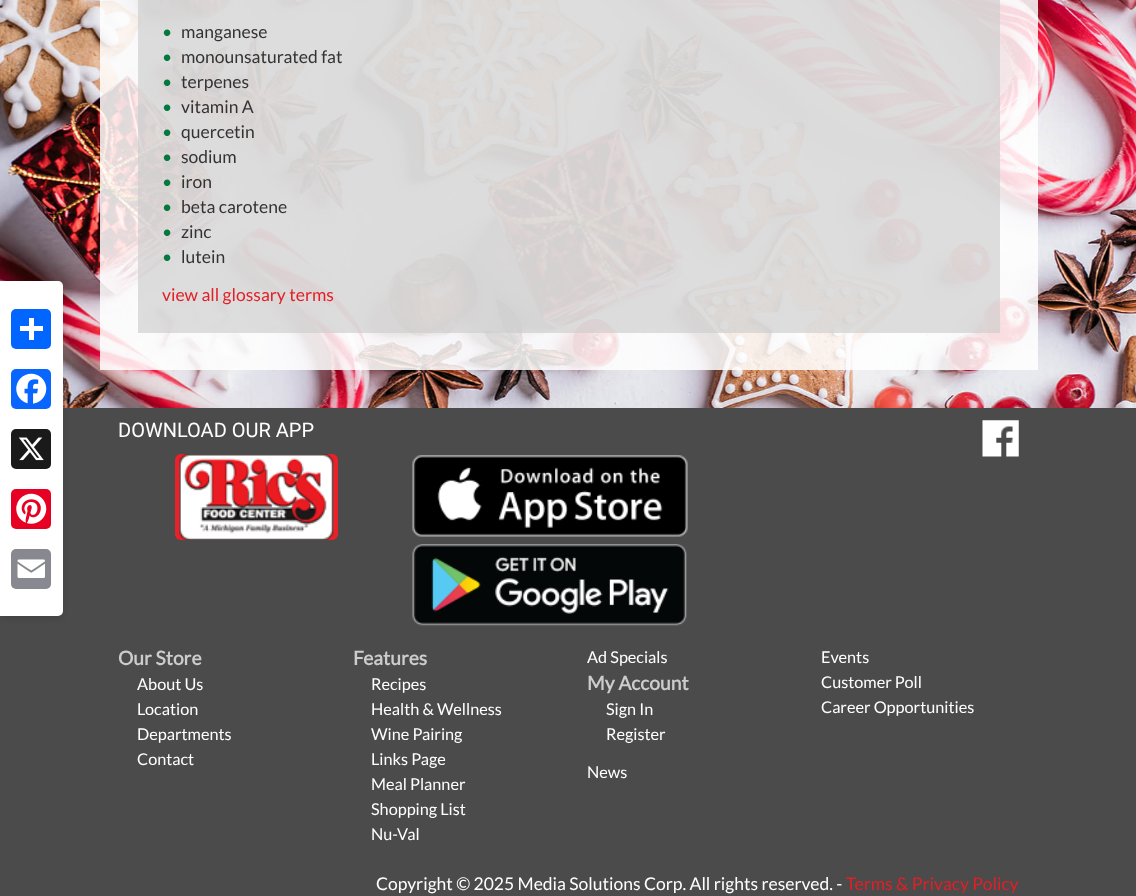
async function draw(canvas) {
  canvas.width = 1136;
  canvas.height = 896;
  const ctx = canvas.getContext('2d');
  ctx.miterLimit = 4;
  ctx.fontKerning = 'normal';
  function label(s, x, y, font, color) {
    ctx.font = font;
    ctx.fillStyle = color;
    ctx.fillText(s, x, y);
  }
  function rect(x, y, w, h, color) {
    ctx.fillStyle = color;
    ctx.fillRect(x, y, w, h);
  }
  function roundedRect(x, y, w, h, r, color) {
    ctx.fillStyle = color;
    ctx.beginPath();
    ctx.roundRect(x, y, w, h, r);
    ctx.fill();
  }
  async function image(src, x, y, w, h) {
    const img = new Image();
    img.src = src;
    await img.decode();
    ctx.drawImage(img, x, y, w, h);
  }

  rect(0, 0, 1136, 896, '#fff');
  await image('assets/img1.png', 0, 0, 1136, 408);
  rect(100, 0, 938, 370, '#ffffffd9');
  rect(138, 0, 862, 333, '#cccccca6');
  label('•', 162, 38, '17.5px Lato', '#03793e');
  label('manganese', 181, 38, '17.5px Lato', '#333');
  label('•', 162, 63, '17.5px Lato', '#03793e');
  label('monounsaturated fat', 181, 63, '17.5px Lato', '#333');
  label('•', 162, 88, '17.5px Lato', '#03793e');
  label('terpenes', 181, 88, '17.5px Lato', '#333');
  label('•', 162, 113, '17.5px Lato', '#03793e');
  label('vitamin A', 181, 113, '17.5px Lato', '#333');
  label('•', 162, 138, '17.5px Lato', '#03793e');
  label('quercetin', 181, 138, '17.5px Lato', '#333');
  label('•', 162, 163, '17.5px Lato', '#03793e');
  label('sodium', 181, 163, '17.5px Lato', '#333');
  label('•', 162, 188, '17.5px Lato', '#03793e');
  label('iron', 181, 188, '17.5px Lato', '#333');
  label('•', 162, 213, '17.5px Lato', '#03793e');
  label('beta carotene', 181, 213, '17.5px Lato', '#333');
  label('•', 162, 238, '17.5px Lato', '#03793e');
  label('zinc', 181, 238, '17.5px Lato', '#333');
  label('•', 162, 263, '17.5px Lato', '#03793e');
  label('lutein', 181, 263, '17.5px Lato', '#333');
  label('view all glossary terms', 162, 301, '17.5px Lato', '#e31f26');
  rect(0, 408, 1136, 488, '#4b4b4b');
  ctx.fillStyle = '#0000001a';
  ctx.filter = 'blur(3px)';
  ctx.beginPath();
  ctx.roundRect(0, 284, 63, 335, 5);
  ctx.fill();
  ctx.filter = 'none';
  ctx.fillStyle = '#fff';
  ctx.beginPath();
  ctx.roundRect(0, 281, 63, 335, [0, 5, 5, 0]);
  ctx.fill();
  roundedRect(11, 309, 40, 40, 5, '#0166ff');
  rect(29, 318, 5, 22, '#fff');
  rect(20, 326, 23, 5, '#fff');
  roundedRect(11, 369, 40, 40, 5, '#0866ff');
  await image('assets/img2.png', 16, 373, 31, 31);
  roundedRect(11, 429, 40, 40, 5, '#1a1a1a');
  await image('assets/img3.png', 18, 437, 26, 24);
  roundedRect(11, 489, 40, 40, 5, '#e60023');
  await image('assets/img4.png', 16, 493, 31, 31);
  roundedRect(11, 549, 40, 40, 5, '#888990');
  await image('assets/img5.png', 17, 559, 28, 19);
  label('DOWNLOAD OUR APP', 118, 437, '20px Roboto', '#fff');
  roundedRect(175, 454, 163, 86, 6, '#ea2128');
  await image('assets/img6.png', 179, 454, 155, 86);
  await image('assets/img7.png', 412, 455, 276, 82);
  await image('assets/img8.png', 412, 544, 275, 82);
  await image('assets/img9.png', 982, 420, 37, 37);
  label('Our Store', 118, 665, 'bold 19.25px Lato', '#ccc');
  label('About Us', 137, 690, '16.25px Lato', '#fff');
  label('Location', 137, 715, '16.25px Lato', '#fff');
  label('Departments', 137, 740, '16.25px Lato', '#fff');
  label('Contact', 137, 765, '16.25px Lato', '#fff');
  label('Features', 353, 665, 'bold 19.25px Lato', '#ccc');
  label('Recipes', 371, 690, '16.25px Lato', '#fff');
  label('Health & Wellness', 371, 715, '16.25px Lato', '#fff');
  label('Wine Pairing', 371, 740, '16.25px Lato', '#fff');
  label('Links Page', 371, 765, '16.25px Lato', '#fff');
  label('Meal Planner', 371, 790, '16.25px Lato', '#fff');
  label('Shopping List', 371, 815, '16.25px Lato', '#fff');
  label('Nu-Val', 371, 840, '16.25px Lato', '#fff');
  label('Ad Specials', 587, 663, '16.25px Lato', '#fff');
  label('My Account', 587, 690, 'bold 19.25px Lato', '#ccc');
  label('Sign In', 606, 715, '16.25px Lato', '#fff');
  label('Register', 606, 740, '16.25px Lato', '#fff');
  label('News', 587, 778, '16.25px Lato', '#fff');
  label('Events', 821, 663, '16.25px Lato', '#fff');
  label('Customer Poll', 821, 688, '16.25px Lato', '#fff');
  label('Career Opportunities', 821, 713, '16.25px Lato', '#fff');
  label('Copyright © 2025 Media Solutions Corp. All rights reserved. -', 376, 890, '17.5px Lato', '#fff');
  label('Terms & Privacy Policy', 846, 890, '17.5px Lato', '#e31f26');
}

draw(document.querySelector('canvas'));
